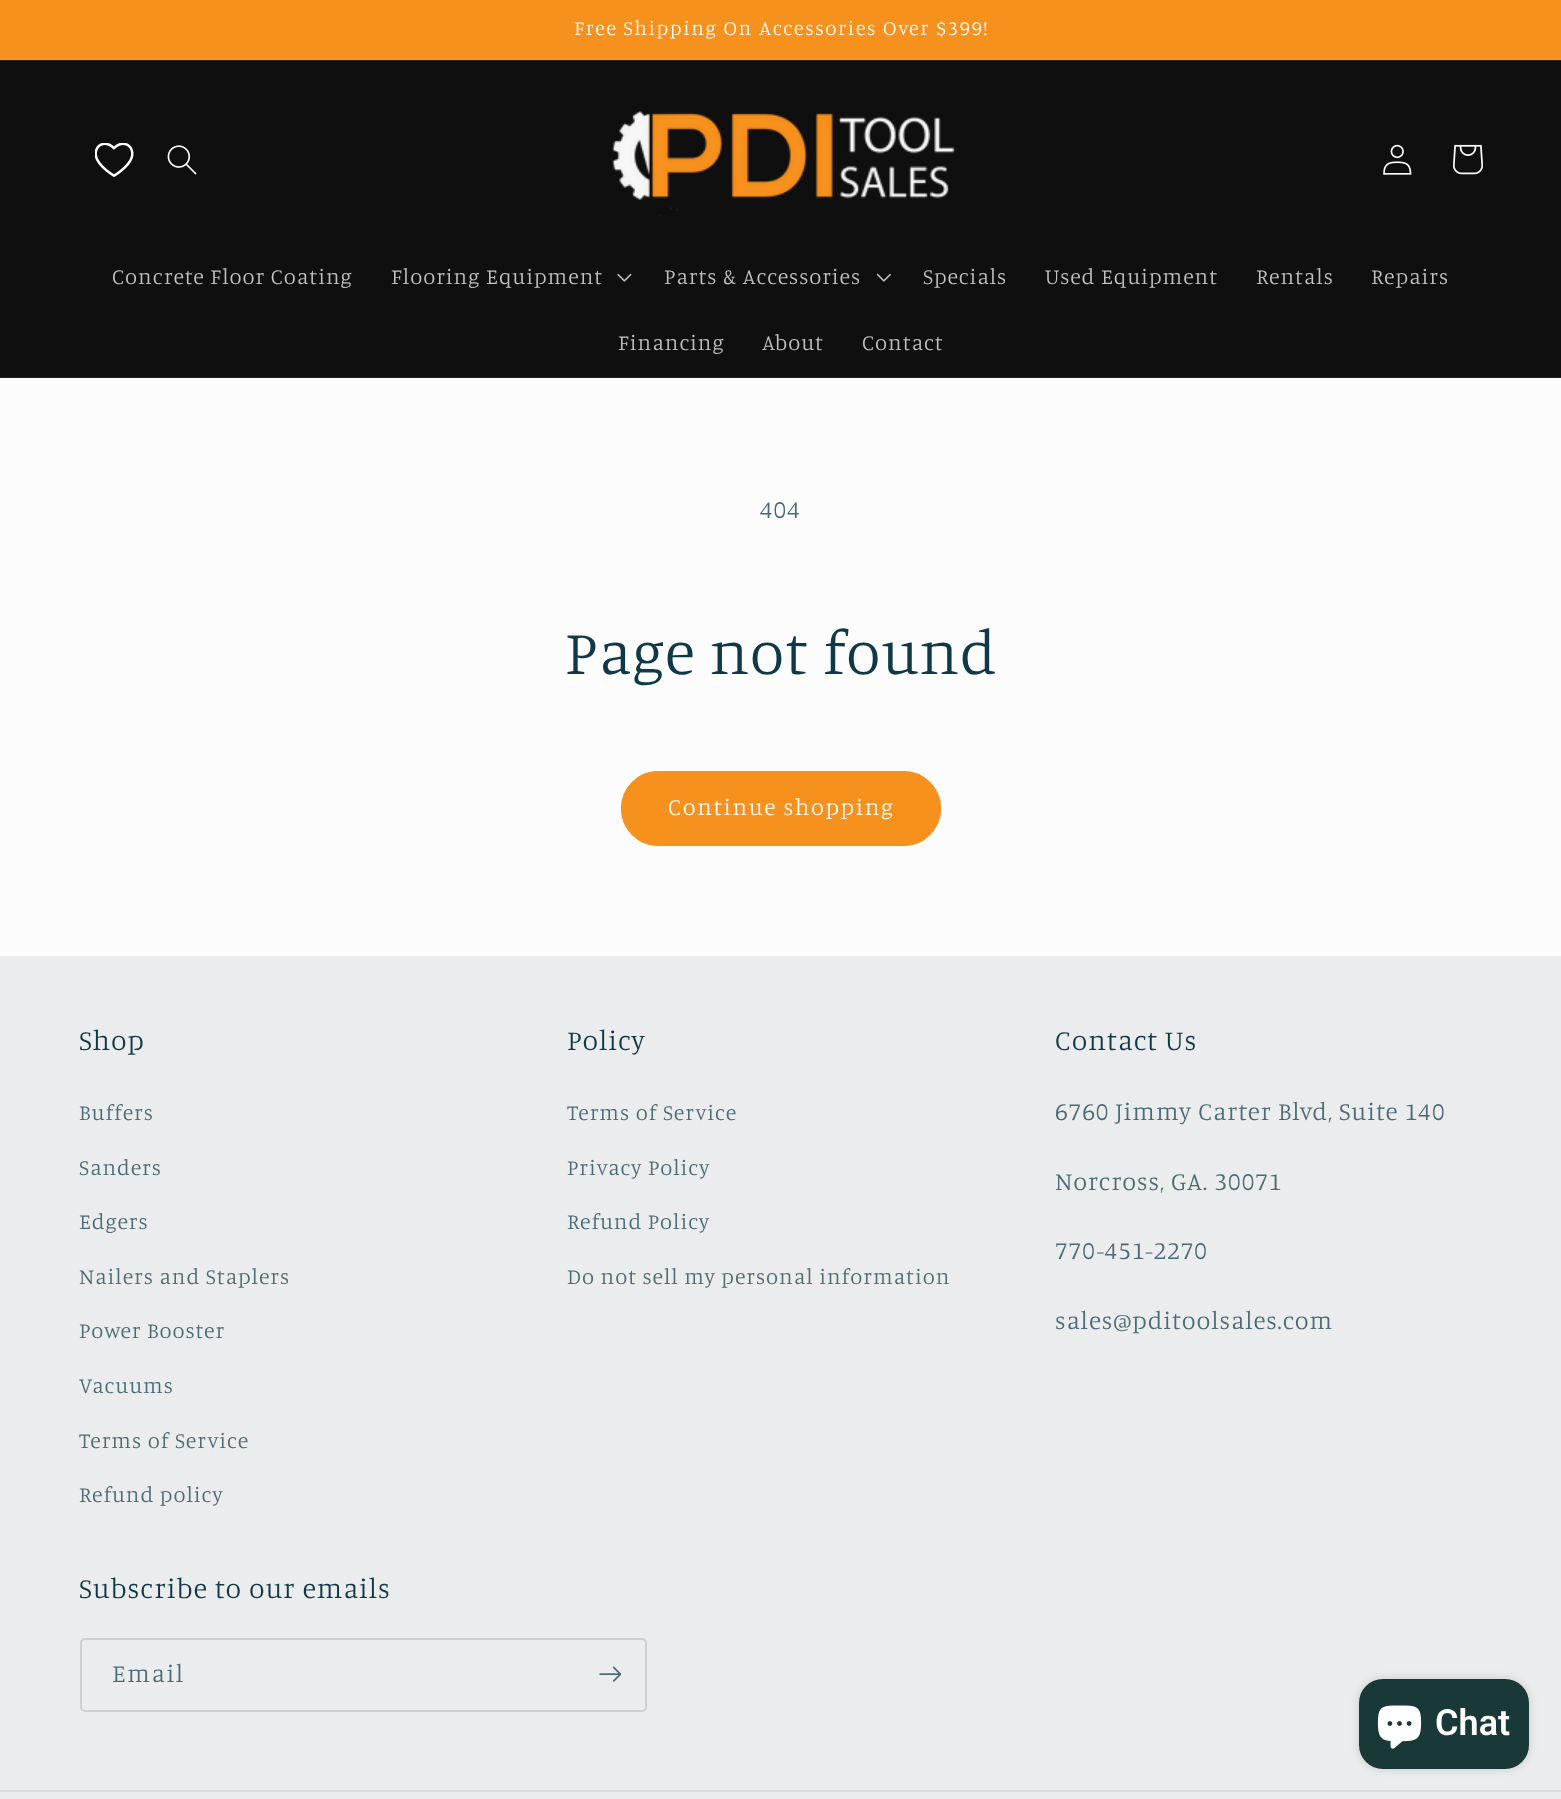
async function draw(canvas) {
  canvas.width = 1561;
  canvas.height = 1799;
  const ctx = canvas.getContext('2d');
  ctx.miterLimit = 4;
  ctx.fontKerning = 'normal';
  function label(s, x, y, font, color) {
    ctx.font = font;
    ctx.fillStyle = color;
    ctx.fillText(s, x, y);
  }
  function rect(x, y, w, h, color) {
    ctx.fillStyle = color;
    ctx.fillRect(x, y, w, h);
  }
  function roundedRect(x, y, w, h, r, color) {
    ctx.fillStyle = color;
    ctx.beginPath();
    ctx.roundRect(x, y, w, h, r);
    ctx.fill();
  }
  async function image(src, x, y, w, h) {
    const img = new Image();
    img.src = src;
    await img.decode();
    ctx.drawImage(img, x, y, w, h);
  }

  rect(0, 0, 1561, 1799, '#fcfcfc');
  rect(0, 0, 1561, 59, '#f7911e');
  rect(0, 59, 1561, 1, '#f79a30');
  ctx.letterSpacing = '1.6px';
  label('Free Shipping On Accessories Over $399!', 574, 35, '300 20.5px Manuale', '#fcfcfc');
  rect(0, 61, 1561, 316, '#100f0f');
  rect(0, 60, 1561, 1, '#232222');
  rect(0, 377, 1561, 1, '#232222');
  await image('assets/img1.png', 95, 143, 39, 34);
  await image('assets/img2.png', 167, 145, 30, 30);
  await image('assets/img3.png', 612, 110, 343, 106);
  await image('assets/img4.png', 1383, 144, 29, 31);
  await image('assets/img5.png', 1453, 144, 30, 31);
  ctx.letterSpacing = '0.95px';
  label('Concrete Floor Coating', 112, 284, '300 22px Manuale', '#c1c1c1');
  label('Flooring Equipment', 391, 284, '300 22px Manuale', '#c1c1c1');
  await image('assets/img6.png', 617, 273, 15, 9);
  label('Parts & Accessories', 664, 284, '300 22px Manuale', '#c1c1c1');
  await image('assets/img7.png', 876, 273, 15, 9);
  label('Specials', 923, 284, '300 22px Manuale', '#c1c1c1');
  label('Used Equipment', 1045, 284, '300 22px Manuale', '#c1c1c1');
  label('Rentals', 1256, 284, '300 22px Manuale', '#c1c1c1');
  label('Repairs', 1371, 284, '300 22px Manuale', '#c1c1c1');
  label('Financing', 618, 350, '300 22px Manuale', '#c1c1c1');
  label('About', 762, 350, '300 22px Manuale', '#c1c1c1');
  label('Contact', 862, 350, '300 22px Manuale', '#c1c1c1');
  label('404', 760, 518, '300 25.25px Manuale', '#4b6a75');
  label('Page not found', 565, 674, '300 63px Manuale', '#103948');
  roundedRect(621, 771, 320, 75, 37.5, '#f7911e');
  ctx.beginPath();
  ctx.roundRect(622, 772, 318, 73, 36.5);
  ctx.strokeStyle = '#f7911e';
  ctx.lineWidth = 2;
  ctx.stroke();
  ctx.letterSpacing = '1.6px';
  label('Continue shopping', 668, 815, '300 23.6px Manuale', '#fcfcfc');
  rect(0, 956, 1561, 843, '#ebeced');
  ctx.letterSpacing = '0.95px';
  label('Shop', 79, 1050, '300 28.4px Manuale', '#103948');
  label('Buffers', 79, 1120, '300 22px Manuale', '#4b6a75');
  label('Sanders', 79, 1175, '300 22px Manuale', '#4b6a75');
  label('Edgers', 79, 1229, '300 22px Manuale', '#4b6a75');
  label('Nailers and Staplers', 79, 1284, '300 22px Manuale', '#4b6a75');
  label('Power Booster', 79, 1338, '300 22px Manuale', '#4b6a75');
  label('Vacuums', 79, 1393, '300 22px Manuale', '#4b6a75');
  label('Terms of Service', 79, 1448, '300 22px Manuale', '#4b6a75');
  label('Refund policy', 79, 1502, '300 22px Manuale', '#4b6a75');
  label('Policy', 567, 1050, '300 28.4px Manuale', '#103948');
  label('Terms of Service', 567, 1120, '300 22px Manuale', '#4b6a75');
  label('Privacy Policy', 567, 1175, '300 22px Manuale', '#4b6a75');
  label('Refund Policy', 567, 1229, '300 22px Manuale', '#4b6a75');
  label('Do not sell my personal information', 567, 1284, '300 22px Manuale', '#4b6a75');
  label('Contact Us', 1055, 1050, '300 28.4px Manuale', '#103948');
  label('6760 Jimmy Carter Blvd, Suite 140', 1055, 1120, '300 25.25px Manuale', '#4b6a75');
  label('Norcross, GA. 30071', 1055, 1190, '300 25.25px Manuale', '#4b6a75');
  label('770-451-2270', 1055, 1259, '300 25.25px Manuale', '#4b6a75');
  label('sales@pditoolsales.com', 1055, 1329, '300 25.25px Manuale', '#4b6a75');
  label('Subscribe to our emails', 79, 1598, '300 28.4px Manuale', '#103948');
  ctx.beginPath();
  ctx.roundRect(81, 1639, 565, 72, 4);
  ctx.strokeStyle = '#10394826';
  ctx.stroke();
  ctx.letterSpacing = '1.6px';
  label('Email', 112, 1682, '300 25.25px Manuale', '#4b6a75');
  await image('assets/img8.png', 599, 1666, 22, 16);
  rect(0, 1790, 1561, 2, '#d9dee0');
  ctx.fillStyle = '#00000026';
  ctx.filter = 'blur(4px)';
  ctx.beginPath();
  ctx.roundRect(1359, 1679, 170, 90, 24);
  ctx.fill();
  ctx.filter = 'none';
  roundedRect(1359, 1679, 170, 90, 24, '#193838');
  await image('assets/img9.png', 1377, 1705, 45, 44);
  ctx.letterSpacing = '0px';
  label('Chat', 1435, 1735, '600 36px Roboto', '#fcfcfc');
}

draw(document.querySelector('canvas'));
